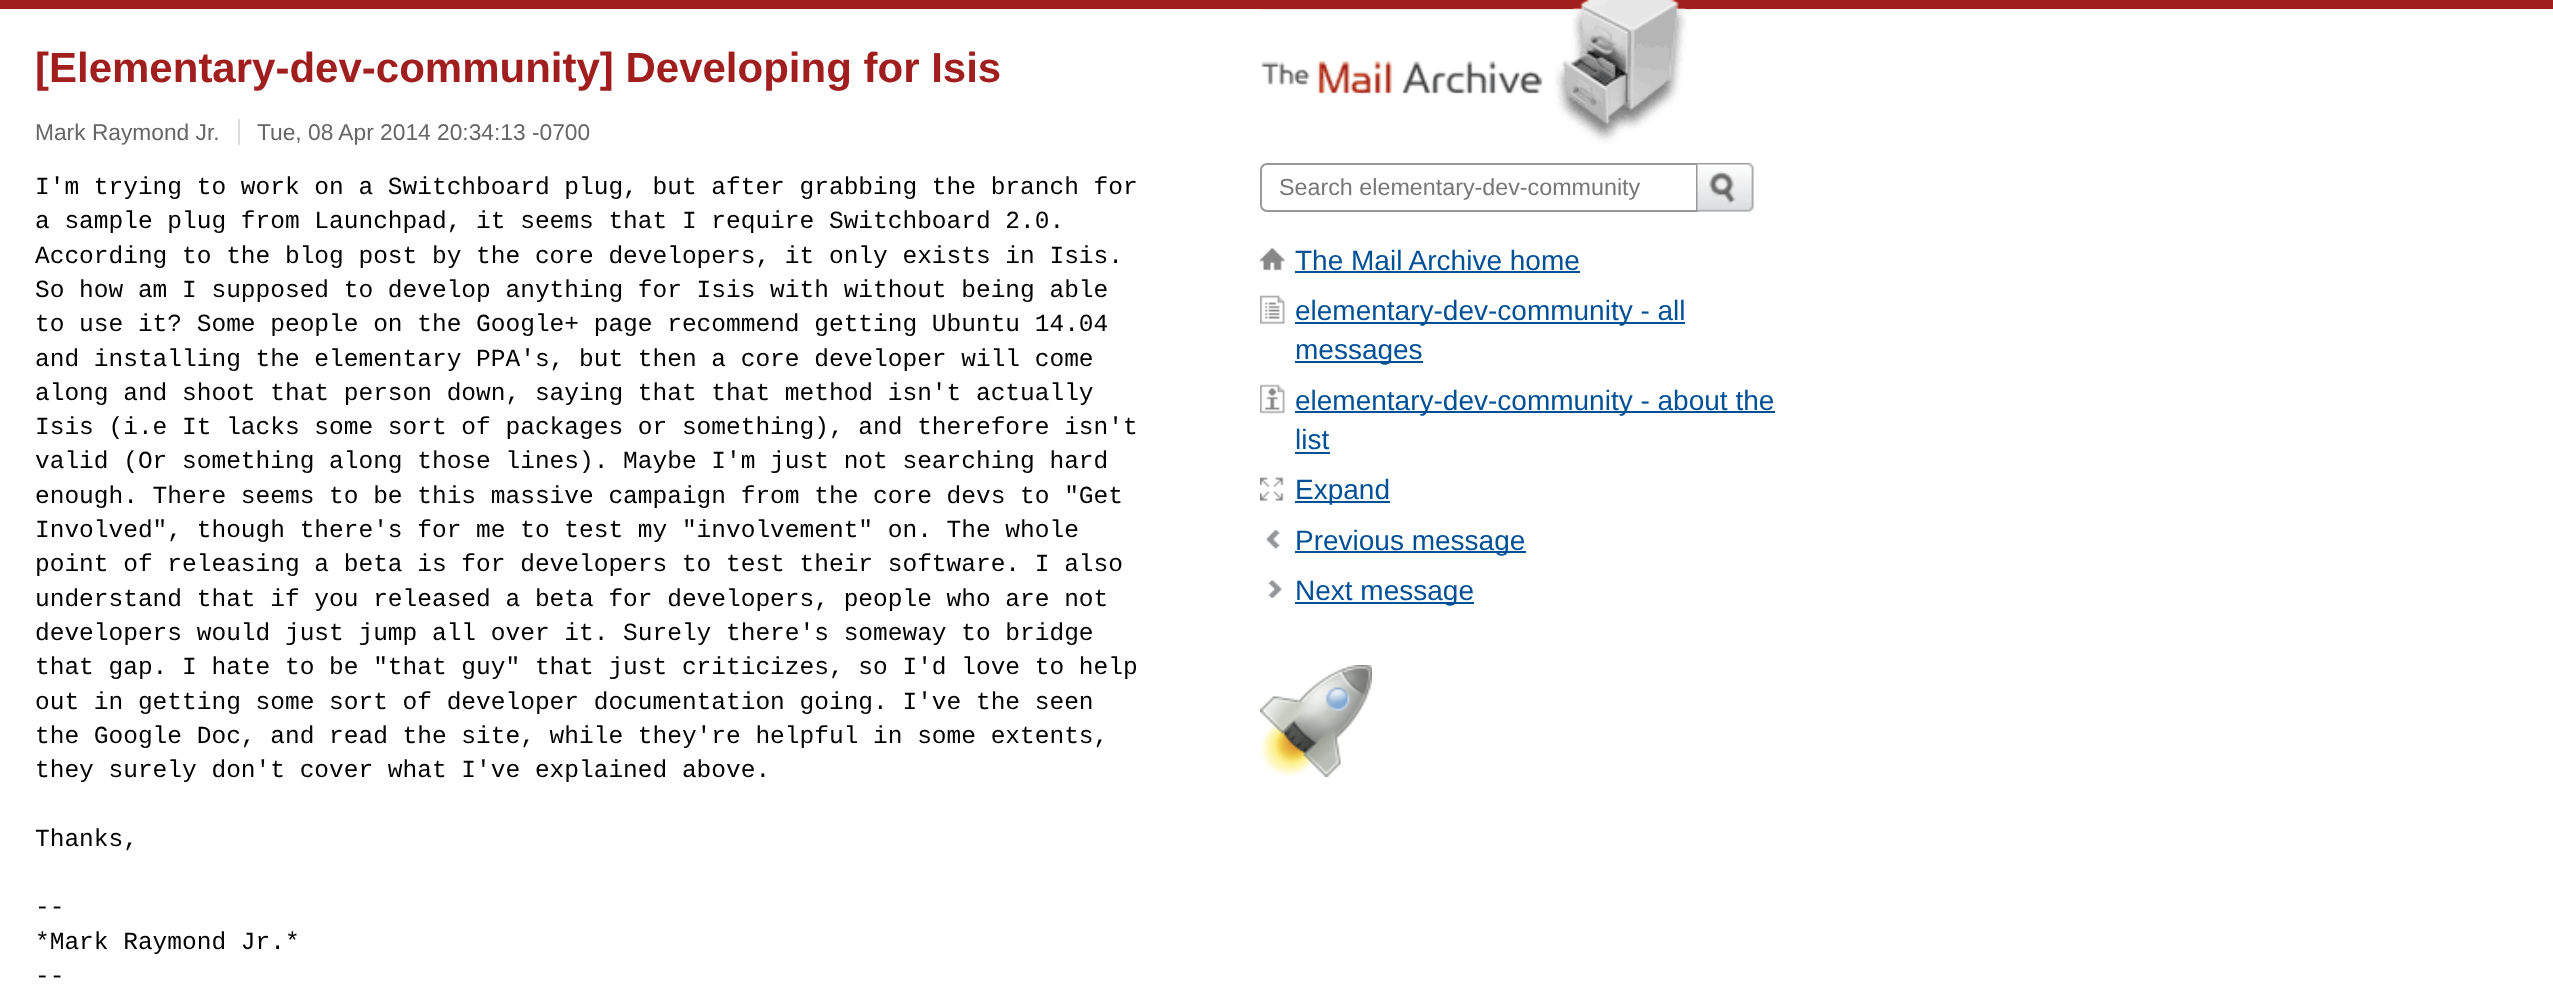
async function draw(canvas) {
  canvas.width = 2553;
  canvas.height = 988;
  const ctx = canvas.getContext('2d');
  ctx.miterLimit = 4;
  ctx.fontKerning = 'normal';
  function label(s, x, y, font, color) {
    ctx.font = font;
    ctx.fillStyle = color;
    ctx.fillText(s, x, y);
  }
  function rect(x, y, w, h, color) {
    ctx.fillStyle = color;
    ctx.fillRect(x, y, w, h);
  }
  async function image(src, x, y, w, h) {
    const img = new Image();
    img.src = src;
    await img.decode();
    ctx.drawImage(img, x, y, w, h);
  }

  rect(0, 0, 2553, 988, '#fff');
  rect(0, 0, 2553, 9, '#a01e1e');
  label('[Elementary-dev-community] Developing for Isis', 35, 82, 'bold 42px Liberation Sans', '#a01e1e');
  label('Mark Raymond Jr.', 35, 140, '22.75px Liberation Sans', '#666');
  rect(238, 119, 2, 26, '#ddd');
  label('Tue, 08 Apr 2014 20:34:13 -0700', 257, 140, '22.75px Liberation Sans', '#666');
  label('I\'m trying to work on a Switchboard plug, but after grabbing the branch for', 35, 194, '24.5px Liberation Mono', '#000');
  label('a sample plug from Launchpad, it seems that I require Switchboard 2.0.', 35, 228, '24.5px Liberation Mono', '#000');
  label('According to the blog post by the core developers, it only exists in Isis.', 35, 263, '24.5px Liberation Mono', '#000');
  label('So how am I supposed to develop anything for Isis with without being able', 35, 297, '24.5px Liberation Mono', '#000');
  label('to use it? Some people on the Google+ page recommend getting Ubuntu 14.04', 35, 331, '24.5px Liberation Mono', '#000');
  label('and installing the elementary PPA\'s, but then a core developer will come', 35, 366, '24.5px Liberation Mono', '#000');
  label('along and shoot that person down, saying that that method isn\'t actually', 35, 400, '24.5px Liberation Mono', '#000');
  label('Isis (i.e It lacks some sort of packages or something), and therefore isn\'t', 35, 434, '24.5px Liberation Mono', '#000');
  label('valid (Or something along those lines). Maybe I\'m just not searching hard', 35, 468, '24.5px Liberation Mono', '#000');
  label('enough. There seems to be this massive campaign from the core devs to "Get', 35, 503, '24.5px Liberation Mono', '#000');
  label('Involved", though there\'s for me to test my "involvement" on. The whole', 35, 537, '24.5px Liberation Mono', '#000');
  label('point of releasing a beta is for developers to test their software. I also', 35, 571, '24.5px Liberation Mono', '#000');
  label('understand that if you released a beta for developers, people who are not', 35, 606, '24.5px Liberation Mono', '#000');
  label('developers would just jump all over it. Surely there\'s someway to bridge', 35, 640, '24.5px Liberation Mono', '#000');
  label('that gap. I hate to be "that guy" that just criticizes, so I\'d love to help', 35, 674, '24.5px Liberation Mono', '#000');
  label('out in getting some sort of developer documentation going. I\'ve the seen', 35, 709, '24.5px Liberation Mono', '#000');
  label('the Google Doc, and read the site, while they\'re helpful in some extents,', 35, 743, '24.5px Liberation Mono', '#000');
  label('they surely don\'t cover what I\'ve explained above.', 35, 777, '24.5px Liberation Mono', '#000');
  label('Thanks,', 35, 846, '24.5px Liberation Mono', '#000');
  label('--', 35, 914, '24.5px Liberation Mono', '#000');
  label('*Mark Raymond Jr.*', 35, 949, '24.5px Liberation Mono', '#000');
  label('--', 35, 983, '24.5px Liberation Mono', '#000');
  await image('assets/img1.png', 1260, 0, 433, 144);
  ctx.beginPath();
  ctx.roundRect(1261, 164, 436, 47, [6, 0, 0, 6]);
  ctx.strokeStyle = '#999';
  ctx.lineWidth = 2;
  ctx.stroke();
  label('Search elementary-dev-community', 1279, 195, '23.3px Liberation Sans', '#777');
  await image('assets/img2.png', 1697, 162, 57, 50);
  await image('assets/img3.png', 1260, 248, 25, 23);
  label('The Mail Archive home', 1295, 270, '28px Liberation Sans', '#005096');
  rect(1295, 271, 285, 2, '#005096');
  await image('assets/img4.png', 1260, 295, 25, 30);
  rect(1295, 322, 390, 2, '#005096');
  label('elementary-dev-community - all', 1295, 320, '28px Liberation Sans', '#005096');
  rect(1295, 361, 128, 2, '#005096');
  label('messages', 1295, 359, '28px Liberation Sans', '#005096');
  await image('assets/img5.png', 1260, 384, 25, 30);
  rect(1295, 411, 480, 2, '#005096');
  label('elementary-dev-community - about the', 1295, 410, '28px Liberation Sans', '#005096');
  label('list', 1295, 449, '28px Liberation Sans', '#005096');
  rect(1295, 452, 35, 2, '#005096');
  await image('assets/img6.png', 1260, 477, 24, 24);
  rect(1295, 501, 95, 2, '#005096');
  label('Expand', 1295, 499, '28px Liberation Sans', '#005096');
  await image('assets/img7.png', 1266, 530, 14, 19);
  rect(1295, 551, 231, 2, '#005096');
  label('Previous message', 1295, 550, '28px Liberation Sans', '#005096');
  await image('assets/img8.png', 1268, 580, 14, 19);
  rect(1295, 602, 179, 2, '#005096');
  label('Next message', 1295, 600, '28px Liberation Sans', '#005096');
  await image('assets/img9.png', 1260, 665, 112, 112);
}

draw(document.querySelector('canvas'));
